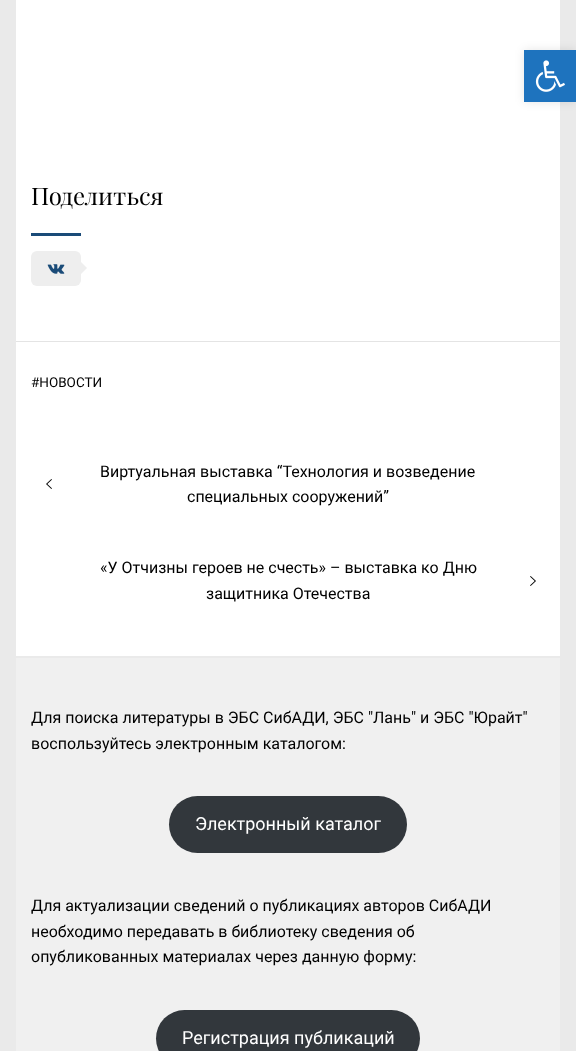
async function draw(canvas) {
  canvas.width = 576;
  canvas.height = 1051;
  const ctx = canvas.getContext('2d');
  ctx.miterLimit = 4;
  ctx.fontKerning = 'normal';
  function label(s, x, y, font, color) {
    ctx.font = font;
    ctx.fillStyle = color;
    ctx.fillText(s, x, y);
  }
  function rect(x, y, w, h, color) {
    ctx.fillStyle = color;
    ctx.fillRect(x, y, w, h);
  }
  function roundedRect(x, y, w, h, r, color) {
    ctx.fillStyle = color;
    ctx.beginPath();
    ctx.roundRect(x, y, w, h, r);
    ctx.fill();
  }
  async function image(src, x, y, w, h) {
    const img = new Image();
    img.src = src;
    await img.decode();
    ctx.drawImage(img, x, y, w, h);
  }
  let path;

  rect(0, 0, 576, 1051, '#eaeaea');
  rect(16, 0, 544, 656, '#fff');
  ctx.fillStyle = '#0000001a';
  ctx.filter = 'blur(5px)';
  ctx.beginPath();
  ctx.rect(524, 50, 52, 52);
  ctx.fill();
  ctx.filter = 'none';
  rect(524, 50, 52, 52, '#1e73be');
  await image('assets/img1.png', 535, 60, 30, 32);
  rect(16, 341, 544, 1, '#e4e4e4');
  label('Поделиться', 31, 205, '24px Playfair Display', '#000');
  rect(31, 233, 50, 3, '#1a4b78');
  roundedRect(31, 251, 50, 35, 6, '#eee');
  await image('assets/img2.png', 47, 264, 18, 10);
  path = new Path2D('M81 274V262L87 268Z');
  ctx.fill(path);
  label('#НОВОСТИ', 31, 387, '13.5px Roboto', '#000');
  await image('assets/img3.png', 46, 479, 6, 10);
  label('Виртуальная выставка “Технология и возведение', 100, 477, '16px Roboto', '#000');
  label('специальных сооружений”', 187, 502, '16px Roboto', '#000');
  label('«У Отчизны героев не счесть» – выставка ко Дню', 100, 573, '16px Roboto', '#000');
  label('защитника Отечества', 206, 599, '16px Roboto', '#000');
  await image('assets/img4.png', 530, 576, 6, 10);
  rect(16, 658, 544, 393, '#f0f0f0');
  label('Для поиска литературы в ЭБС СибАДИ, ЭБС "Лань" и ЭБС "Юрайт"', 31, 723, '16px Roboto', '#000');
  label('воспользуйтесь электронным каталогом:', 31, 749, '16px Roboto', '#000');
  roundedRect(169, 796, 238, 57, 28.5, '#32373c');
  label('Электронный каталог', 195, 830, '18px Roboto', '#fff');
  label('Для актуализации сведений о публикациях авторов СибАДИ', 31, 911, '16px Roboto', '#000');
  label('необходимо передавать в библиотеку сведения об', 31, 937, '16px Roboto', '#000');
  label('опубликованных материалах через данную форму:', 31, 962, '16px Roboto', '#000');
  roundedRect(156, 1010, 264, 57, 28.5, '#32373c');
  label('Регистрация публикаций', 182, 1044, '18px Roboto', '#fff');
}

draw(document.querySelector('canvas'));
